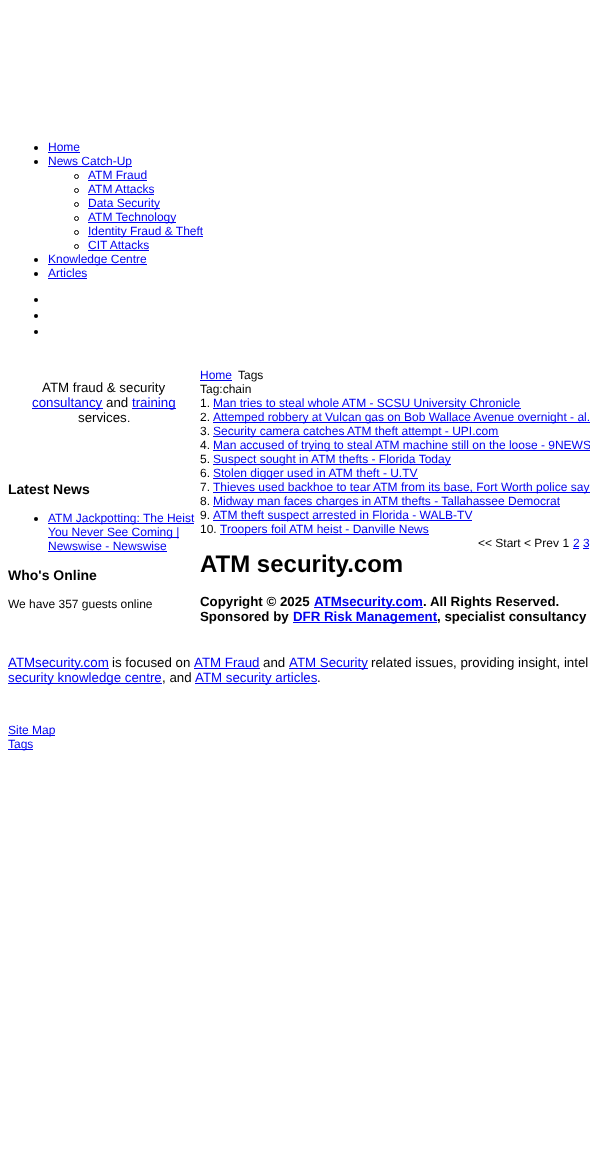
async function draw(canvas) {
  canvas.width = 590;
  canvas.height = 1155;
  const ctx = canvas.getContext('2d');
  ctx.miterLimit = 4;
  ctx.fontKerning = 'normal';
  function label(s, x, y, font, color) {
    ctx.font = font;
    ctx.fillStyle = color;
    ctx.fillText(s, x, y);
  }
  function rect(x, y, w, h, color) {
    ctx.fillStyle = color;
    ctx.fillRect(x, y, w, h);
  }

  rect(0, 0, 590, 1155, '#fff');
  ctx.fillStyle = '#000';
  ctx.beginPath();
  ctx.arc(36, 148, 2, 0, 2 * Math.PI);
  ctx.fill();
  label('Home', 48, 151, '12px Liberation Sans', '#00e');
  rect(48, 152, 32, 1, '#00e');
  ctx.fillStyle = '#000';
  ctx.beginPath();
  ctx.arc(36, 162, 2, 0, 2 * Math.PI);
  ctx.fill();
  rect(48, 166, 84, 1, '#00e');
  label('News Catch-Up', 48, 165, '12px Liberation Sans', '#00e');
  ctx.beginPath();
  ctx.arc(76.5, 176.5, 2, 0, 2 * Math.PI);
  ctx.strokeStyle = '#000';
  ctx.stroke();
  label('ATM Fraud', 88, 179, '12px Liberation Sans', '#00e');
  rect(88, 180, 59, 1, '#00e');
  ctx.beginPath();
  ctx.arc(76.5, 190.5, 2, 0, 2 * Math.PI);
  ctx.stroke();
  label('ATM Attacks', 88, 193, '12px Liberation Sans', '#00e');
  rect(88, 194, 66, 1, '#00e');
  ctx.beginPath();
  ctx.arc(76.5, 204.5, 2, 0, 2 * Math.PI);
  ctx.stroke();
  rect(88, 208, 72, 1, '#00e');
  label('Data Security', 88, 207, '12px Liberation Sans', '#00e');
  ctx.beginPath();
  ctx.arc(76.5, 218.5, 2, 0, 2 * Math.PI);
  ctx.stroke();
  rect(88, 222, 88, 1, '#00e');
  label('ATM Technology', 88, 221, '12px Liberation Sans', '#00e');
  ctx.beginPath();
  ctx.arc(76.5, 232.5, 2, 0, 2 * Math.PI);
  ctx.stroke();
  rect(88, 236, 115, 1, '#00e');
  label('Identity Fraud & Theft', 88, 235, '12px Liberation Sans', '#00e');
  ctx.beginPath();
  ctx.arc(76.5, 246.5, 2, 0, 2 * Math.PI);
  ctx.stroke();
  label('CIT Attacks', 88, 249, '12px Liberation Sans', '#00e');
  rect(88, 250, 61, 1, '#00e');
  ctx.fillStyle = '#000';
  ctx.beginPath();
  ctx.arc(36, 260, 2, 0, 2 * Math.PI);
  ctx.fill();
  rect(48, 264, 99, 1, '#00e');
  label('Knowledge Centre', 48, 263, '12px Liberation Sans', '#00e');
  ctx.fillStyle = '#000';
  ctx.beginPath();
  ctx.arc(36, 274, 2, 0, 2 * Math.PI);
  ctx.fill();
  label('Articles', 48, 277, '12px Liberation Sans', '#00e');
  rect(48, 278, 39, 1, '#00e');
  ctx.fillStyle = '#000';
  ctx.beginPath();
  ctx.arc(36, 300, 2, 0, 2 * Math.PI);
  ctx.fill();
  ctx.beginPath();
  ctx.arc(36, 316, 2, 0, 2 * Math.PI);
  ctx.fill();
  ctx.beginPath();
  ctx.arc(36, 332, 2, 0, 2 * Math.PI);
  ctx.fill();
  label('ATM fraud & security', 42, 392, '13.3px Liberation Sans', '#000');
  rect(32, 408, 71, 1, '#00e');
  label('consultancy', 32, 407, '13.3px Liberation Sans', '#00e');
  label('and', 106, 407, '13.3px Liberation Sans', '#000');
  rect(132, 408, 44, 1, '#00e');
  label('training', 132, 407, '13.3px Liberation Sans', '#00e');
  label('services', 78, 422, '13.3px Liberation Sans', '#000');
  label('.', 127, 422, '12px Liberation Sans', '#000');
  label('Latest News', 8, 494, 'bold 14px Liberation Sans', '#000');
  ctx.beginPath();
  ctx.arc(36, 519, 2, 0, 2 * Math.PI);
  ctx.fill();
  rect(48, 523, 146, 1, '#00e');
  label('ATM Jackpotting: The Heist', 48, 522, '12px Liberation Sans', '#00e');
  rect(48, 537, 131, 1, '#00e');
  label('You Never See Coming |', 48, 536, '12px Liberation Sans', '#00e');
  label('Newswise - Newswise', 48, 550, '12px Liberation Sans', '#00e');
  rect(48, 551, 119, 1, '#00e');
  label('Who\'s Online', 8, 580, 'bold 14px Liberation Sans', '#000');
  label('We have 357 guests online', 8, 608, '12px Liberation Sans', '#000');
  label('Home', 200, 379, '12px Liberation Sans', '#00e');
  rect(200, 380, 32, 1, '#00e');
  label('Tags', 238, 379, '12px Liberation Sans', '#000');
  label('Tag:chain', 200, 393, '12px Liberation Sans', '#000');
  label('1.', 200, 407, '12px Liberation Sans', '#000');
  rect(213, 408, 308, 1, '#00e');
  label('Man tries to steal whole ATM - SCSU University Chronicle', 213, 407, '12px Liberation Sans', '#00e');
  label('2.', 200, 421, '12px Liberation Sans', '#000');
  rect(213, 422, 377, 1, '#00e');
  label('Attemped robbery at Vulcan gas on Bob Wallace Avenue overnight - al.', 213, 421, '12px Liberation Sans', '#00e');
  label('3.', 200, 435, '12px Liberation Sans', '#000');
  rect(213, 436, 286, 1, '#00e');
  label('Security camera catches ATM theft attempt - UPI.com', 213, 435, '12px Liberation Sans', '#00e');
  label('4.', 200, 449, '12px Liberation Sans', '#000');
  rect(213, 450, 377, 1, '#00e');
  label('Man accused of trying to steal ATM machine still on the loose - 9NEWS', 213, 449, '12px Liberation Sans', '#00e');
  label('5.', 200, 463, '12px Liberation Sans', '#000');
  rect(213, 464, 238, 1, '#00e');
  label('Suspect sought in ATM thefts - Florida Today', 213, 463, '12px Liberation Sans', '#00e');
  label('6.', 200, 477, '12px Liberation Sans', '#000');
  rect(213, 478, 205, 1, '#00e');
  label('Stolen digger used in ATM theft - U.TV', 213, 477, '12px Liberation Sans', '#00e');
  label('7.', 200, 491, '12px Liberation Sans', '#000');
  rect(213, 492, 377, 1, '#00e');
  label('Thieves used backhoe to tear ATM from its base, Fort Worth police say', 213, 491, '12px Liberation Sans', '#00e');
  label('8.', 200, 505, '12px Liberation Sans', '#000');
  rect(213, 506, 347, 1, '#00e');
  label('Midway man faces charges in ATM thefts - Tallahassee Democrat', 213, 505, '12px Liberation Sans', '#00e');
  label('9.', 200, 519, '12px Liberation Sans', '#000');
  rect(213, 520, 259, 1, '#00e');
  label('ATM theft suspect arrested in Florida - WALB-TV', 213, 519, '12px Liberation Sans', '#00e');
  label('10.', 200, 533, '12px Liberation Sans', '#000');
  rect(220, 534, 209, 1, '#00e');
  label('Troopers foil ATM heist - Danville News', 220, 533, '12px Liberation Sans', '#00e');
  label('<< Start < Prev 1', 478, 547, '12px Liberation Sans', '#000');
  label('2 3', 573, 547, '12px Liberation Sans', '#00e');
  rect(573, 548, 6, 1, '#00e');
  rect(583, 548, 6, 1, '#00e');
  label('ATM security.com', 200, 572, 'bold 24px Liberation Sans', '#000');
  label('Copyright © 2025', 200, 606, 'bold 13.3px Liberation Sans', '#000');
  rect(314, 607, 109, 1, '#00e');
  label('ATMsecurity.com', 314, 606, 'bold 13.3px Liberation Sans', '#00e');
  label('. All Rights Reserved.', 423, 606, 'bold 13.3px Liberation Sans', '#000');
  label('Sponsored by', 200, 621, 'bold 13.3px Liberation Sans', '#000');
  rect(293, 622, 144, 1, '#00e');
  label('DFR Risk Management', 293, 621, 'bold 13.3px Liberation Sans', '#00e');
  label(', specialist consultancy', 437, 621, 'bold 13.3px Liberation Sans', '#000');
  rect(8, 668, 101, 1, '#00e');
  label('ATMsecurity.com', 8, 667, '13.3px Liberation Sans', '#00e');
  label('is focused on', 112, 667, '13.3px Liberation Sans', '#000');
  label('ATM Fraud', 194, 667, '13.3px Liberation Sans', '#00e');
  rect(194, 668, 66, 1, '#00e');
  label('and', 263, 667, '13.3px Liberation Sans', '#000');
  rect(289, 668, 79, 1, '#00e');
  label('ATM Security', 289, 667, '13.3px Liberation Sans', '#00e');
  label('related issues, providing insight, intel', 371, 667, '13.3px Liberation Sans', '#000');
  rect(8, 683, 154, 1, '#00e');
  label('security knowledge centre', 8, 682, '13.3px Liberation Sans', '#00e');
  label(', and', 162, 682, '13.3px Liberation Sans', '#000');
  rect(195, 683, 122, 1, '#00e');
  label('ATM security articles', 195, 682, '13.3px Liberation Sans', '#00e');
  label('.', 317, 682, '13.3px Liberation Sans', '#000');
  rect(8, 735, 47, 1, '#00e');
  label('Site Map', 8, 734, '12px Liberation Sans', '#00e');
  rect(8, 749, 25, 1, '#00e');
  label('Tags', 8, 748, '12px Liberation Sans', '#00e');
}

draw(document.querySelector('canvas'));
